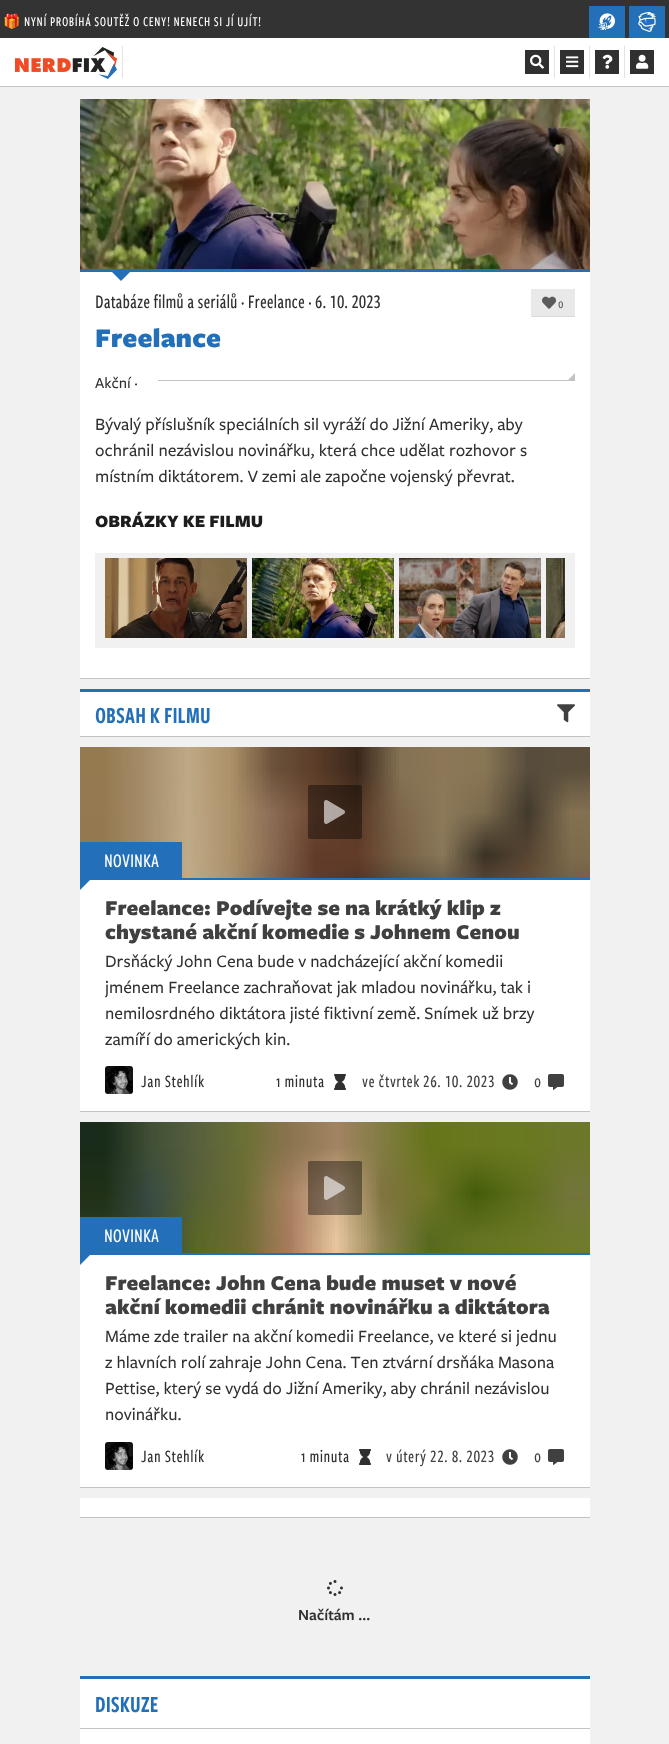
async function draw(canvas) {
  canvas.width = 669;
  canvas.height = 1744;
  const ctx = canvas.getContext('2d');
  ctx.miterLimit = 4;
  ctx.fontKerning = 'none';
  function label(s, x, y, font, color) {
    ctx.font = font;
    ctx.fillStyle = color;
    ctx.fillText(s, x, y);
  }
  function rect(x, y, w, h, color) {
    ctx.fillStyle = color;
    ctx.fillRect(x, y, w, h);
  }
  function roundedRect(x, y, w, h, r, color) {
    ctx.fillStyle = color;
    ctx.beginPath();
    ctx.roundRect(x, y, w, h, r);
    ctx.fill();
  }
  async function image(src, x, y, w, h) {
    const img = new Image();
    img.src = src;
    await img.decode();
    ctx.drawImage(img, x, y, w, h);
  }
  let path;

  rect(0, 0, 669, 1744, '#f1f1f1');
  rect(0, 38, 669, 48, '#fff');
  rect(0, 86, 669, 1, '#c3c3c3');
  rect(0, 0, 669, 38, '#333');
  ctx.letterSpacing = '0.6px';
  label('🎁', 3, 26, '14px Noto Color Emoji', '#fff');
  label('NYNÍ PROBÍHÁ SOUTĚŽ O CENY! NENECH SI JÍ UJÍT!', 24, 26, '500 14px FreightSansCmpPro', '#fff');
  rect(589, 6, 36, 32, '#2370b8');
  await image('assets/img1.png', 597, 13, 18, 18);
  rect(629, 6, 36, 32, '#2370b8');
  await image('assets/img2.png', 638, 12, 18, 20);
  await image('assets/img3.png', 15, 47, 102, 32);
  rect(122, 46, 1, 32, '#e3e3e3');
  rect(525, 50, 24, 24, '#303030');
  await image('assets/img4.png', 530, 54, 14, 15);
  rect(554, 46, 1, 32, '#e3e3e3');
  rect(560, 50, 24, 24, '#303030');
  await image('assets/img5.png', 566, 56, 13, 12);
  rect(589, 46, 1, 32, '#e3e3e3');
  rect(595, 50, 24, 24, '#303030');
  await image('assets/img6.png', 602, 54, 11, 15);
  rect(624, 46, 1, 32, '#e3e3e3');
  rect(630, 50, 24, 24, '#303030');
  await image('assets/img7.png', 636, 54, 13, 15);
  rect(80, 272, 510, 406, '#fff');
  rect(80, 678, 510, 1, '#c3c3c3');
  rect(80, 269, 510, 3, '#2370b8');
  await image('assets/img8.png', 80, 99, 510, 170);
  path = new Path2D('M111 271H131L121 281Z');
  ctx.fill(path);
  ctx.letterSpacing = '0px';
  label('Databáze filmů a seriálů · Freelance ·', 95, 308, '500 20px FreightSansCmpPro', '#303030');
  label('6. 10. 2023', 315, 308, '500 20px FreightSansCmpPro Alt', '#303030');
  rect(532, 289, 43, 27, '#e9e9e9');
  rect(531, 316, 44, 1, '#d9d9d9');
  rect(531, 289, 1, 28, '#e9e9e9');
  await image('assets/img9.png', 542, 296, 14, 13);
  label('0', 558, 308, '500 14px FreightSansCmpPro', '#5b5b5b');
  label('Freelance', 95, 347, '900 28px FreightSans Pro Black', '#2370b8');
  label('Akční ·', 95, 388, '500 16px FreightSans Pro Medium', '#303030');
  rect(158, 380, 417, 1, '#c3c3c3');
  path = new Path2D('M575 381H567L575 373Z');
  ctx.fill(path);
  label('Bývalý příslušník speciálních sil vyráží do Jižní Ameriky, aby', 95, 430, '500 18px FreightSans Pro Medium', '#303030');
  label('ochránil nezávislou novinářku, která chce udělat rozhovor s', 95, 456, '500 18px FreightSans Pro Medium', '#303030');
  label('místním diktátorem. V zemi ale započne vojenský převrat.', 95, 482, '500 18px FreightSans Pro Medium', '#303030');
  label('OBRÁZKY KE FILMU', 95, 527, '900 18px FreightSans Pro Black', '#1d1d1d');
  rect(95, 553, 480, 95, '#f1f1f1');
  await image('assets/img10.png', 105, 558, 142, 80);
  await image('assets/img11.png', 252, 558, 142, 80);
  await image('assets/img12.png', 399, 558, 142, 80);
  await image('assets/img13.png', 546, 558, 19, 80);
  rect(80, 692, 510, 44, '#fff');
  rect(80, 689, 510, 3, '#2370b8');
  rect(80, 736, 510, 1, '#c3c3c3');
  label('OBSAH K FILMU', 95, 723, '600 24px FreightSansCmpPro', '#2370b8');
  await image('assets/img14.png', 557, 704, 18, 19);
  rect(80, 880, 510, 231, '#fff');
  rect(80, 1111, 510, 1, '#c3c3c3');
  rect(90, 878, 500, 2, '#2370b8');
  await image('assets/img15.png', 80, 747, 510, 131);
  roundedRect(308, 785, 54, 54, 2, '#00000063');
  await image('assets/img16.png', 324, 800, 21, 24);
  rect(80, 842, 102, 36, '#2370b8');
  label('NOVINKA', 104, 867, '500 20px FreightSansCmpPro', '#fff');
  ctx.fillStyle = '#2370b8';
  path = new Path2D('M80 878H92L80 890Z');
  ctx.fill(path);
  label('Freelance: Podívejte se na krátký klip z', 105, 915, '900 22px FreightSans Pro Black', '#404040');
  label('chystané akční komedie s Johnem Cenou', 105, 939, '900 22px FreightSans Pro Black', '#404040');
  label('Drsňácký John Cena bude v nadcházející akční komedii', 105, 967, '500 18px FreightSans Pro Medium', '#303030');
  label('jménem Freelance zachraňovat jak mladou novinářku, tak i', 105, 993, '500 18px FreightSans Pro Medium', '#303030');
  label('nemilosrdného diktátora jisté fiktivní země. Snímek už brzy', 105, 1019, '500 18px FreightSans Pro Medium', '#303030');
  label('zamíří do amerických kin.', 105, 1045, '500 18px FreightSans Pro Medium', '#303030');
  await image('assets/img17.png', 105, 1066, 28, 28);
  ctx.letterSpacing = '0.5px';
  label('Jan Stehlík', 141, 1087, '500 18px FreightSansCmpPro', '#303030');
  label('1 minuta', 276, 1087, '500 18px FreightSansCmpPro', '#303030');
  await image('assets/img18.png', 334, 1074, 12, 16);
  label('ve čtvrtek', 362, 1087, '500 18px FreightSansCmpPro', '#404040');
  label('26. 10. 2023', 423, 1087, '500 18px FreightSansCmpPro Alt', '#404040');
  await image('assets/img19.png', 502, 1074, 16, 16);
  label('0', 534, 1087, '500 18px FreightSansCmpPro', '#404040');
  await image('assets/img20.png', 548, 1074, 16, 16);
  rect(80, 1255, 510, 232, '#fff');
  rect(80, 1487, 510, 1, '#c3c3c3');
  rect(90, 1253, 500, 2, '#2370b8');
  await image('assets/img21.png', 80, 1122, 510, 131);
  roundedRect(308, 1161, 54, 54, 2, '#00000063');
  await image('assets/img22.png', 324, 1176, 21, 24);
  rect(80, 1217, 102, 36, '#2370b8');
  ctx.letterSpacing = '0px';
  label('NOVINKA', 104, 1242, '500 20px FreightSansCmpPro', '#fff');
  ctx.fillStyle = '#2370b8';
  path = new Path2D('M80 1253H92L80 1265Z');
  ctx.fill(path);
  label('Freelance: John Cena bude muset v nové', 105, 1290, '900 22px FreightSans Pro Black', '#404040');
  label('akční komedii chránit novinářku a diktátora', 105, 1314, '900 22px FreightSans Pro Black', '#404040');
  label('Máme zde trailer na akční komedii Freelance, ve které si jednu', 105, 1342, '500 18px FreightSans Pro Medium', '#303030');
  label('z hlavních rolí zahraje John Cena. Ten ztvární drsňáka Masona', 105, 1368, '500 18px FreightSans Pro Medium', '#303030');
  label('Pettise, který se vydá do Jižní Ameriky, aby chránil nezávislou', 105, 1394, '500 18px FreightSans Pro Medium', '#303030');
  label('novinářku.', 105, 1420, '500 18px FreightSans Pro Medium', '#303030');
  await image('assets/img17.png', 105, 1442, 28, 28);
  ctx.letterSpacing = '0.5px';
  label('Jan Stehlík', 141, 1462, '500 18px FreightSansCmpPro', '#303030');
  label('1 minuta', 301, 1462, '500 18px FreightSansCmpPro', '#303030');
  await image('assets/img18.png', 359, 1449, 12, 16);
  label('v úterý', 386, 1462, '500 18px FreightSansCmpPro', '#404040');
  label('22. 8. 2023', 430, 1462, '500 18px FreightSansCmpPro Alt', '#404040');
  await image('assets/img19.png', 502, 1449, 16, 16);
  label('0', 534, 1462, '500 18px FreightSansCmpPro', '#404040');
  await image('assets/img20.png', 548, 1449, 16, 16);
  rect(80, 1498, 510, 19, '#fff');
  rect(80, 1517, 510, 1, '#c3c3c3');
  await image('assets/img23.png', 327, 1580, 16, 16);
  ctx.letterSpacing = '0px';
  label('Načítám ...', 298, 1620, '600 16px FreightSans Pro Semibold', '#303030');
  rect(80, 1679, 510, 65, '#fff');
  rect(80, 1676, 510, 3, '#2370b8');
  rect(80, 1728, 510, 1, '#c3c3c3');
  label('DISKUZE', 95, 1712, '600 24px FreightSansCmpPro', '#2370b8');
}

draw(document.querySelector('canvas'));
